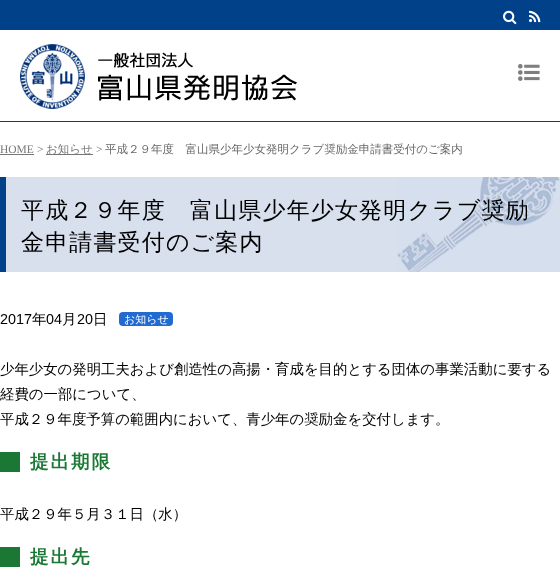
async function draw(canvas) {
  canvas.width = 560;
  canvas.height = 569;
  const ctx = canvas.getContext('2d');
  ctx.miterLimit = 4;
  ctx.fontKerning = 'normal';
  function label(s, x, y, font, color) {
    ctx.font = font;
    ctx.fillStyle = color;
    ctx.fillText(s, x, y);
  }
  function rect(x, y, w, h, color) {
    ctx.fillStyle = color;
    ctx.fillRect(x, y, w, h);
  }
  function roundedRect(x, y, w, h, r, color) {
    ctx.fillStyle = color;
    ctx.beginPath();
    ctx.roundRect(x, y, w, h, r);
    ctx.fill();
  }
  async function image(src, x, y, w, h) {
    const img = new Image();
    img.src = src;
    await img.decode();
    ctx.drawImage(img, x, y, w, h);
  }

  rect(0, 0, 560, 569, '#fff');
  rect(0, 121, 560, 1, '#004189');
  rect(0, 0, 560, 30, '#004189');
  await image('assets/img1.png', 503, 10, 14, 15);
  await image('assets/img2.png', 529, 10, 12, 13);
  await image('assets/img3.png', 20, 44, 277, 65);
  await image('assets/img4.png', 518, 64, 22, 17);
  label('HOME', 0, 153, '11.5px Liberation Serif', '#777');
  rect(0, 154, 34, 1, '#777');
  label('>', 37, 153, '11.5px Liberation Serif', '#666');
  rect(46, 154, 47, 1, '#777');
  label('お知らせ', 46, 153, '500 11.5px WenQuanYi Zen Hei', '#777');
  label('>', 96, 153, '11.5px Liberation Serif', '#666');
  label('平成２９年度　富山県少年少女発明クラブ奨励金申請書受付のご案内', 105, 153, '500 11.5px WenQuanYi Zen Hei', '#666');
  rect(6, 177, 391, 95, '#d8dfed');
  await image('assets/img5.png', 397, 177, 163, 95);
  rect(0, 177, 6, 95, '#004189');
  ctx.letterSpacing = '1.15px';
  label('平成２９年度　富山県少年少女発明クラブ奨励', 21, 218, '500 23px WenQuanYi Zen Hei', '#000');
  label('金申請書受付のご案内', 21, 250, '500 23px WenQuanYi Zen Hei', '#000');
  ctx.letterSpacing = '0px';
  label('2017', 0, 324, '14.4px Liberation Sans', '#000');
  label('年', 32, 324, '500 14.4px WenQuanYi Zen Hei', '#000');
  label('04', 46, 324, '14.4px Liberation Sans', '#000');
  label('月', 62, 324, '500 14.4px WenQuanYi Zen Hei', '#000');
  label('20', 77, 324, '14.4px Liberation Sans', '#000');
  label('日', 93, 324, '500 14.4px WenQuanYi Zen Hei', '#000');
  roundedRect(119, 312, 54, 14, 4, '#216bd0');
  label('お知らせ', 124, 323, '500 11px WenQuanYi Zen Hei', '#fff');
  label('少年少女の発明工夫および創造性の高揚・育成を目的とする団体の事業活動に要する', 0, 374, '500 14.4px WenQuanYi Zen Hei', '#000');
  label('経費の一部について、', 0, 399, '500 14.4px WenQuanYi Zen Hei', '#000');
  label('平成２９年度予算の範囲内において、青少年の奨励金を交付します。', 0, 424, '500 14.4px WenQuanYi Zen Hei', '#000');
  rect(0, 452, 20, 20, '#1a7834');
  ctx.letterSpacing = '2px';
  label('提出期限', 30, 468, 'bold 18.5px WenQuanYi Zen Hei', '#1a7834');
  ctx.letterSpacing = '0px';
  label('平成２９年５月３１日（水）', 0, 519, '500 14.4px WenQuanYi Zen Hei', '#000');
  rect(0, 547, 20, 20, '#1a7834');
  ctx.letterSpacing = '2px';
  label('提出先', 30, 563, 'bold 18.5px WenQuanYi Zen Hei', '#1a7834');
}

draw(document.querySelector('canvas'));
